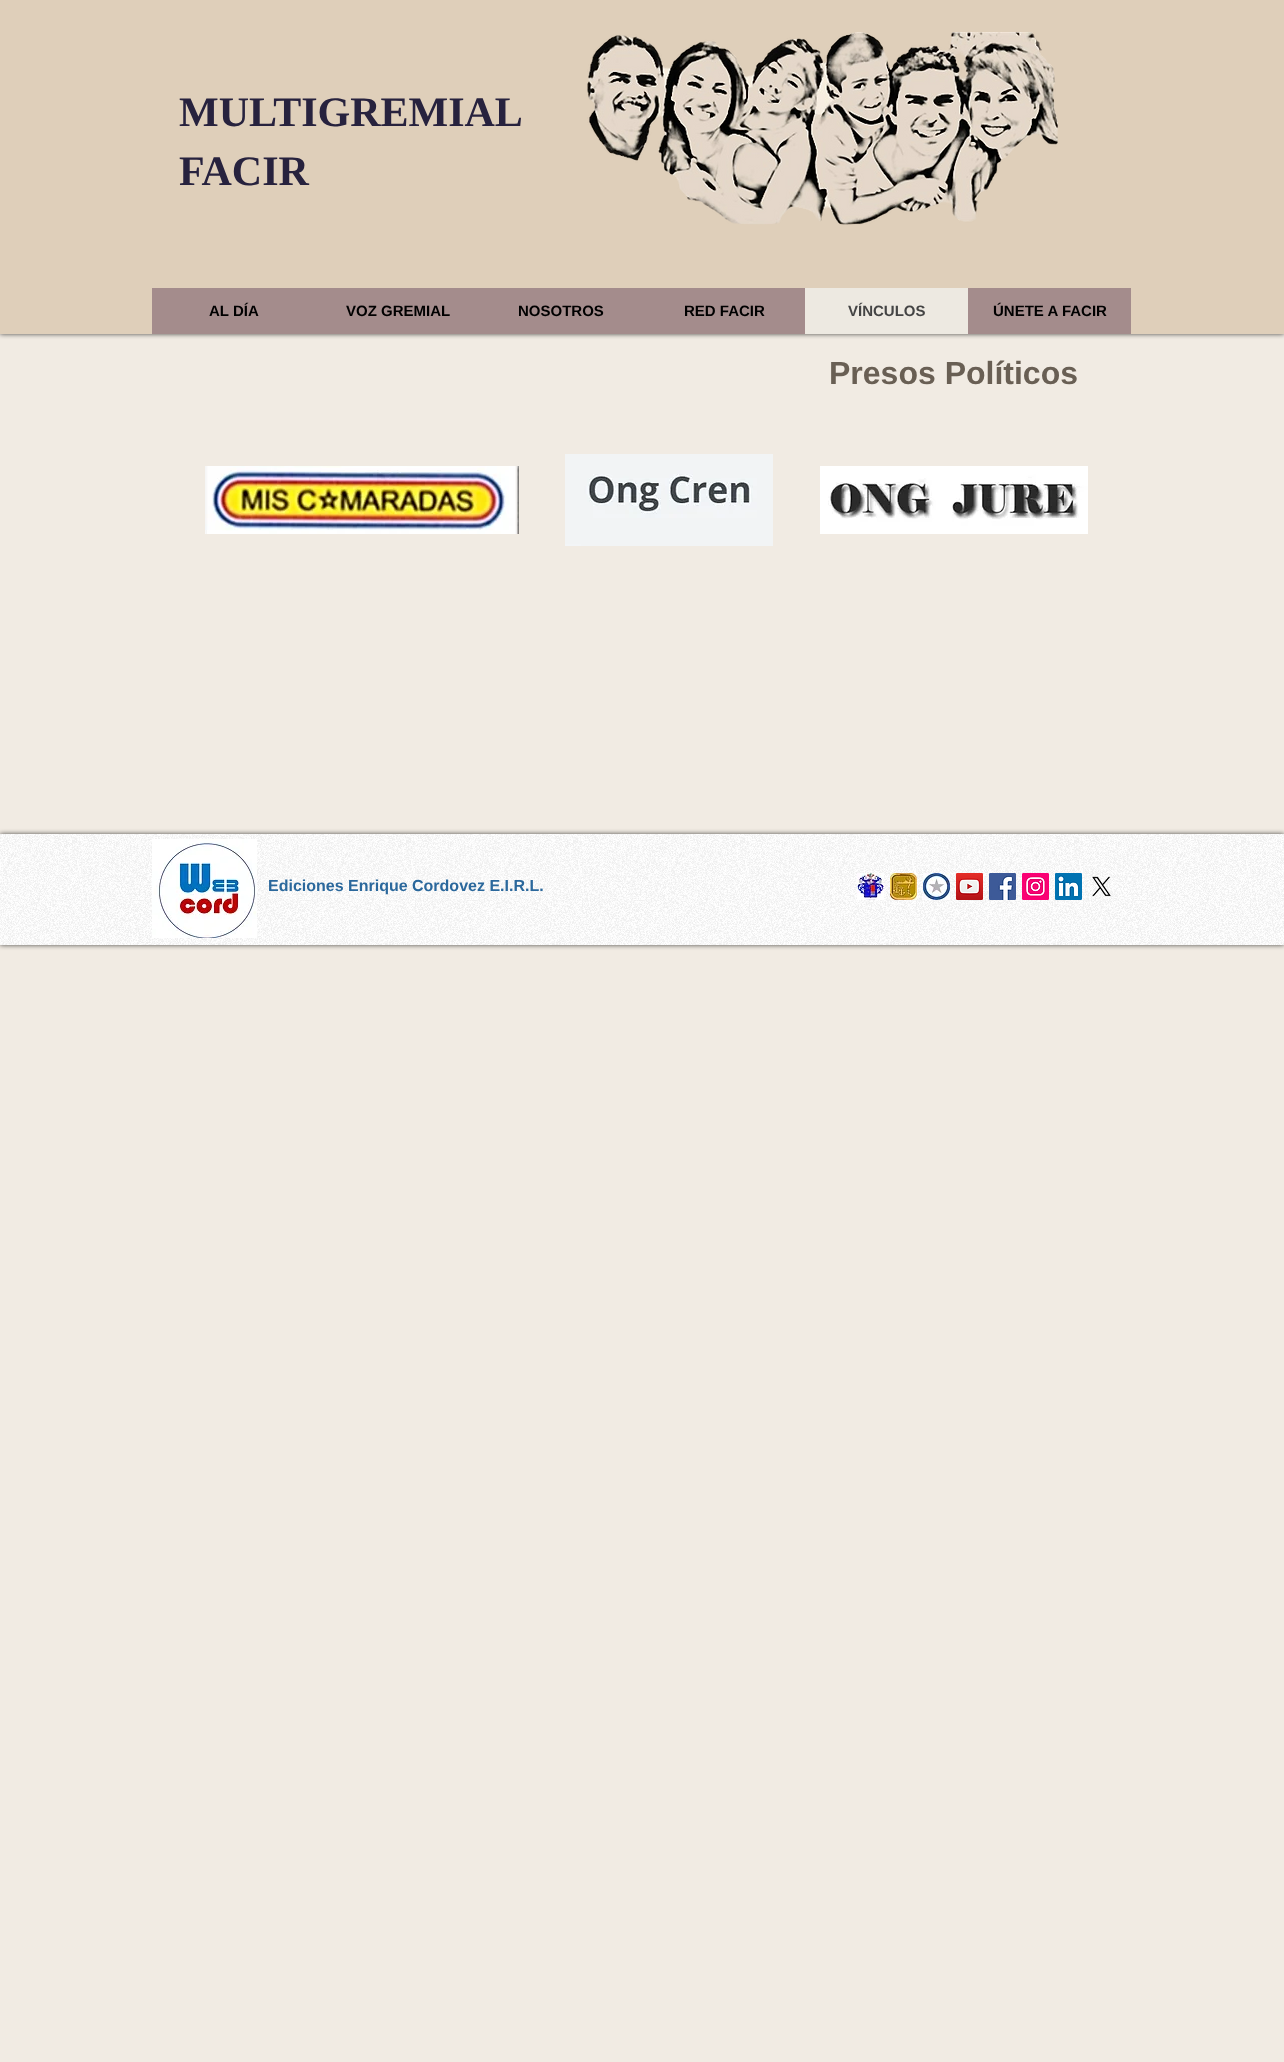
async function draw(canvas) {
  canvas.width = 1284;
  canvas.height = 2062;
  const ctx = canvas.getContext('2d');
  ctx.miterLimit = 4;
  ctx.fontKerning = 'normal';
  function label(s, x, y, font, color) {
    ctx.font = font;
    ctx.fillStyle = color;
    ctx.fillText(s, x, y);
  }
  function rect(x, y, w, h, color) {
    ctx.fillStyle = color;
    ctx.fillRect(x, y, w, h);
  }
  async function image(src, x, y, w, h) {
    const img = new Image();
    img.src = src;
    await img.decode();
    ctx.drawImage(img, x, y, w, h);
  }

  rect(0, 0, 1284, 2062, '#f1ebe3');
  ctx.fillStyle = '#000000b3';
  ctx.filter = 'blur(2.5px)';
  ctx.beginPath();
  ctx.rect(0, 0, 1284, 334);
  ctx.fill();
  ctx.filter = 'none';
  rect(0, 0, 1284, 334, '#dfcfba');
  label('MULTIGREMIAL', 179, 126, 'bold 42px Liberation Serif', '#27223e');
  label('FACIR', 179, 185, 'bold 42px Liberation Serif', '#27223e');
  await image('assets/img1.png', 587, 32, 471, 193);
  rect(152, 288, 979, 46, '#a48c8c');
  label('AL DÍA', 209, 316, 'bold 15px Liberation Sans', '#000');
  label('VOZ GREMIAL', 346, 316, 'bold 15px Liberation Sans', '#000');
  label('NOSOTROS', 518, 316, 'bold 15px Liberation Sans', '#000');
  label('RED FACIR', 684, 316, 'bold 15px Liberation Sans', '#000');
  rect(805, 288, 163, 46, '#ede9e1');
  label('VÍNCULOS', 848, 316, 'bold 15px Liberation Sans', '#444');
  label('ÚNETE A FACIR', 993, 316, 'bold 15px Liberation Sans', '#000');
  label('Presos Políticos', 829, 384, 'bold 32px Liberation Sans', '#695f54');
  await image('assets/img2.png', 205, 466, 314, 68);
  await image('assets/img3.png', 565, 454, 208, 92);
  await image('assets/img4.png', 820, 466, 268, 68);
  ctx.fillStyle = '#000000b3';
  ctx.filter = 'blur(2.5px)';
  ctx.beginPath();
  ctx.rect(0, 834, 1284, 111);
  ctx.fill();
  ctx.filter = 'none';
  rect(0, 834, 1284, 111, '#fff');
  await image('assets/img5.png', 0, 834, 1284, 111);
  await image('assets/img6.png', 152, 839, 105, 99);
  label('Ediciones Enrique Cordovez E.I.R.L.', 268, 891, 'bold 16px Liberation Sans', '#2b689c');
  await image('assets/img7.png', 857, 873, 27, 27);
  await image('assets/img8.png', 890, 873, 27, 27);
  await image('assets/img9.png', 923, 873, 27, 27);
  await image('assets/img10.png', 956, 873, 27, 27);
  await image('assets/img11.png', 989, 873, 27, 27);
  await image('assets/img12.png', 1022, 873, 27, 27);
  await image('assets/img13.png', 1055, 873, 27, 27);
  await image('assets/img14.png', 1092, 876, 19, 21);
}

draw(document.querySelector('canvas'));
